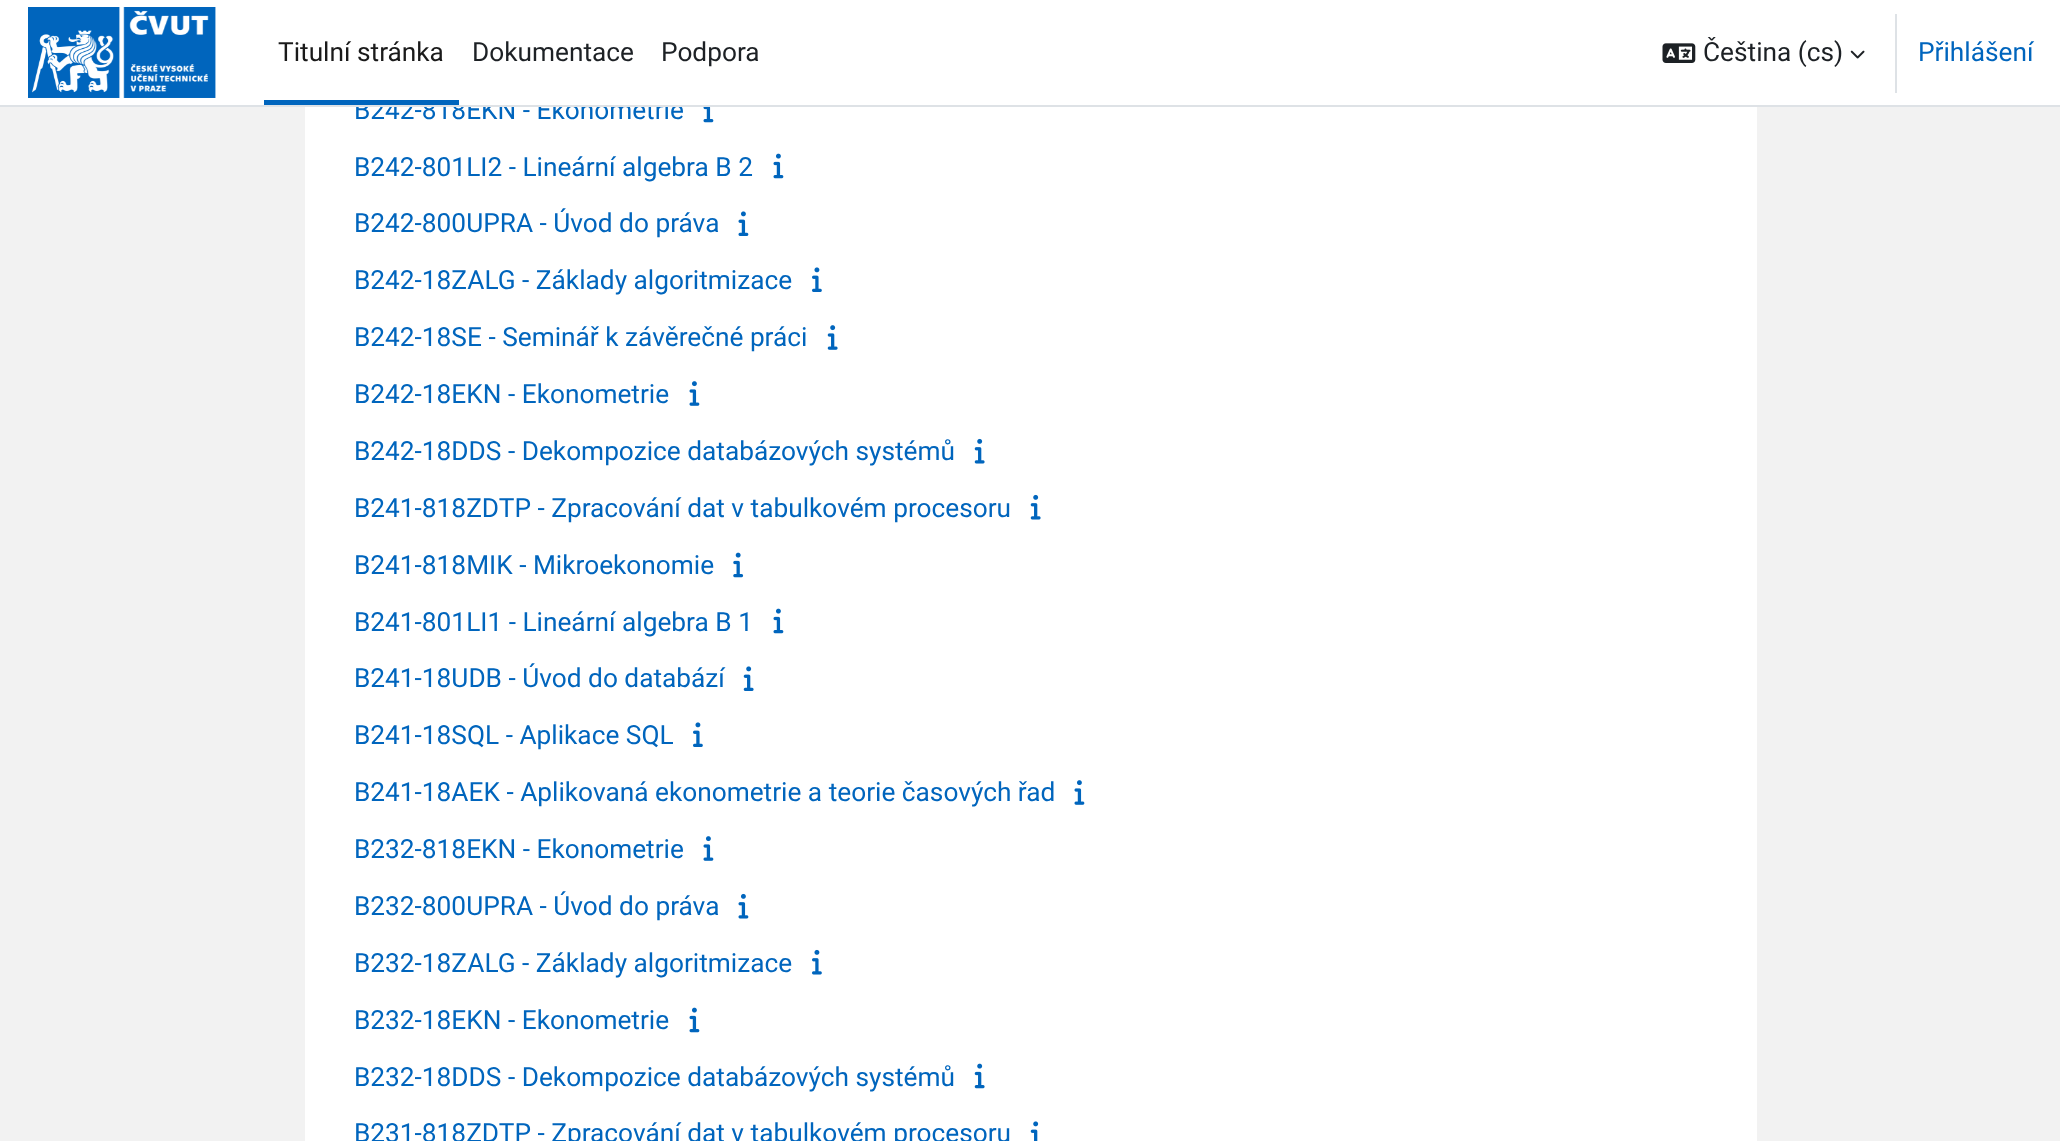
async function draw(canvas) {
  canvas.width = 2060;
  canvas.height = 1141;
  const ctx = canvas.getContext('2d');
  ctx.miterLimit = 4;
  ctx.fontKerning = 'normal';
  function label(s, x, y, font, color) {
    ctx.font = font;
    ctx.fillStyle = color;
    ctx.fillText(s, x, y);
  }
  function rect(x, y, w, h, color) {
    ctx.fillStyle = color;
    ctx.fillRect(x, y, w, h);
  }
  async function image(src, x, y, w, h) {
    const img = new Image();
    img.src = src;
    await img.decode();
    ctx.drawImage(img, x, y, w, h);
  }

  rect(0, 0, 2060, 1141, '#f2f2f2');
  rect(305, 107, 1452, 1034, '#fff');
  label('B242-818EKN - Ekonometrie', 354, 119, '26.25px Roboto', '#0065bd');
  rect(0, 0, 2060, 105, '#fff');
  rect(0, 105, 2060, 2, '#dee2e6');
  await image('assets/img1.png', 28, 7, 188, 91);
  rect(264, 100, 195, 5, '#0065bd');
  label('Titulní stránka', 278, 61, '26.25px Roboto', '#1a1a1a');
  label('Dokumentace', 472, 61, '26.25px Roboto', '#1d2125');
  label('Podpora', 661, 61, '26.25px Roboto', '#1d2125');
  await image('assets/img2.png', 1662, 43, 34, 20);
  label('Čeština (cs)', 1703, 61, '26.25px Roboto', '#1d2125');
  await image('assets/img3.png', 1850, 50, 15, 9);
  rect(1895, 14, 2, 79, '#dee2e6');
  label('Přihlášení', 1918, 61, '26.25px Roboto', '#0065bd');
  await image('assets/img4.png', 703, 107, 11, 16);
  label('B242-801LI2 - Lineární algebra B 2', 354, 176, '26.25px Roboto', '#0065bd');
  await image('assets/img5.png', 773, 153, 11, 26);
  label('B242-800UPRA - Úvod do práva', 354, 232, '26.25px Roboto', '#0065bd');
  await image('assets/img6.png', 738, 211, 11, 25);
  label('B242-18ZALG - Základy algoritmizace', 354, 289, '26.25px Roboto', '#0065bd');
  await image('assets/img7.png', 812, 267, 10, 25);
  label('B242-18SE - Seminář k závěrečné práci', 354, 346, '26.25px Roboto', '#0065bd');
  await image('assets/img8.png', 827, 325, 11, 25);
  label('B242-18EKN - Ekonometrie', 354, 403, '26.25px Roboto', '#0065bd');
  await image('assets/img9.png', 689, 381, 11, 25);
  label('B242-18DDS - Dekompozice databázových systémů', 354, 460, '26.25px Roboto', '#0065bd');
  await image('assets/img10.png', 974, 438, 11, 26);
  label('B241-818ZDTP - Zpracování dat v tabulkovém procesoru', 354, 517, '26.25px Roboto', '#0065bd');
  await image('assets/img10.png', 1030, 494, 11, 26);
  label('B241-818MIK - Mikroekonomie', 354, 574, '26.25px Roboto', '#0065bd');
  await image('assets/img11.png', 733, 552, 11, 26);
  label('B241-801LI1 - Lineární algebra B 1', 354, 631, '26.25px Roboto', '#0065bd');
  await image('assets/img5.png', 773, 608, 11, 26);
  label('B241-18UDB - Úvod do databází', 354, 687, '26.25px Roboto', '#0065bd');
  await image('assets/img12.png', 743, 666, 11, 25);
  label('B241-18SQL - Aplikace SQL', 354, 744, '26.25px Roboto', '#0065bd');
  await image('assets/img7.png', 693, 722, 10, 25);
  label('B241-18AEK - Aplikovaná ekonometrie a teorie časových řad', 354, 801, '26.25px Roboto', '#0065bd');
  await image('assets/img9.png', 1074, 780, 11, 25);
  label('B232-818EKN - Ekonometrie', 354, 858, '26.25px Roboto', '#0065bd');
  await image('assets/img9.png', 703, 836, 11, 25);
  label('B232-800UPRA - Úvod do práva', 354, 915, '26.25px Roboto', '#0065bd');
  await image('assets/img13.png', 738, 893, 11, 26);
  label('B232-18ZALG - Základy algoritmizace', 354, 972, '26.25px Roboto', '#0065bd');
  await image('assets/img14.png', 812, 949, 10, 26);
  label('B232-18EKN - Ekonometrie', 354, 1029, '26.25px Roboto', '#0065bd');
  await image('assets/img5.png', 689, 1007, 11, 26);
  label('B232-18DDS - Dekompozice databázových systémů', 354, 1086, '26.25px Roboto', '#0065bd');
  await image('assets/img15.png', 974, 1063, 11, 26);
  label('B231-818ZDTP - Zpracování dat v tabulkovém procesoru', 354, 1142, '26.25px Roboto', '#0065bd');
  await image('assets/img16.png', 1030, 1121, 9, 20);
}

draw(document.querySelector('canvas'));
